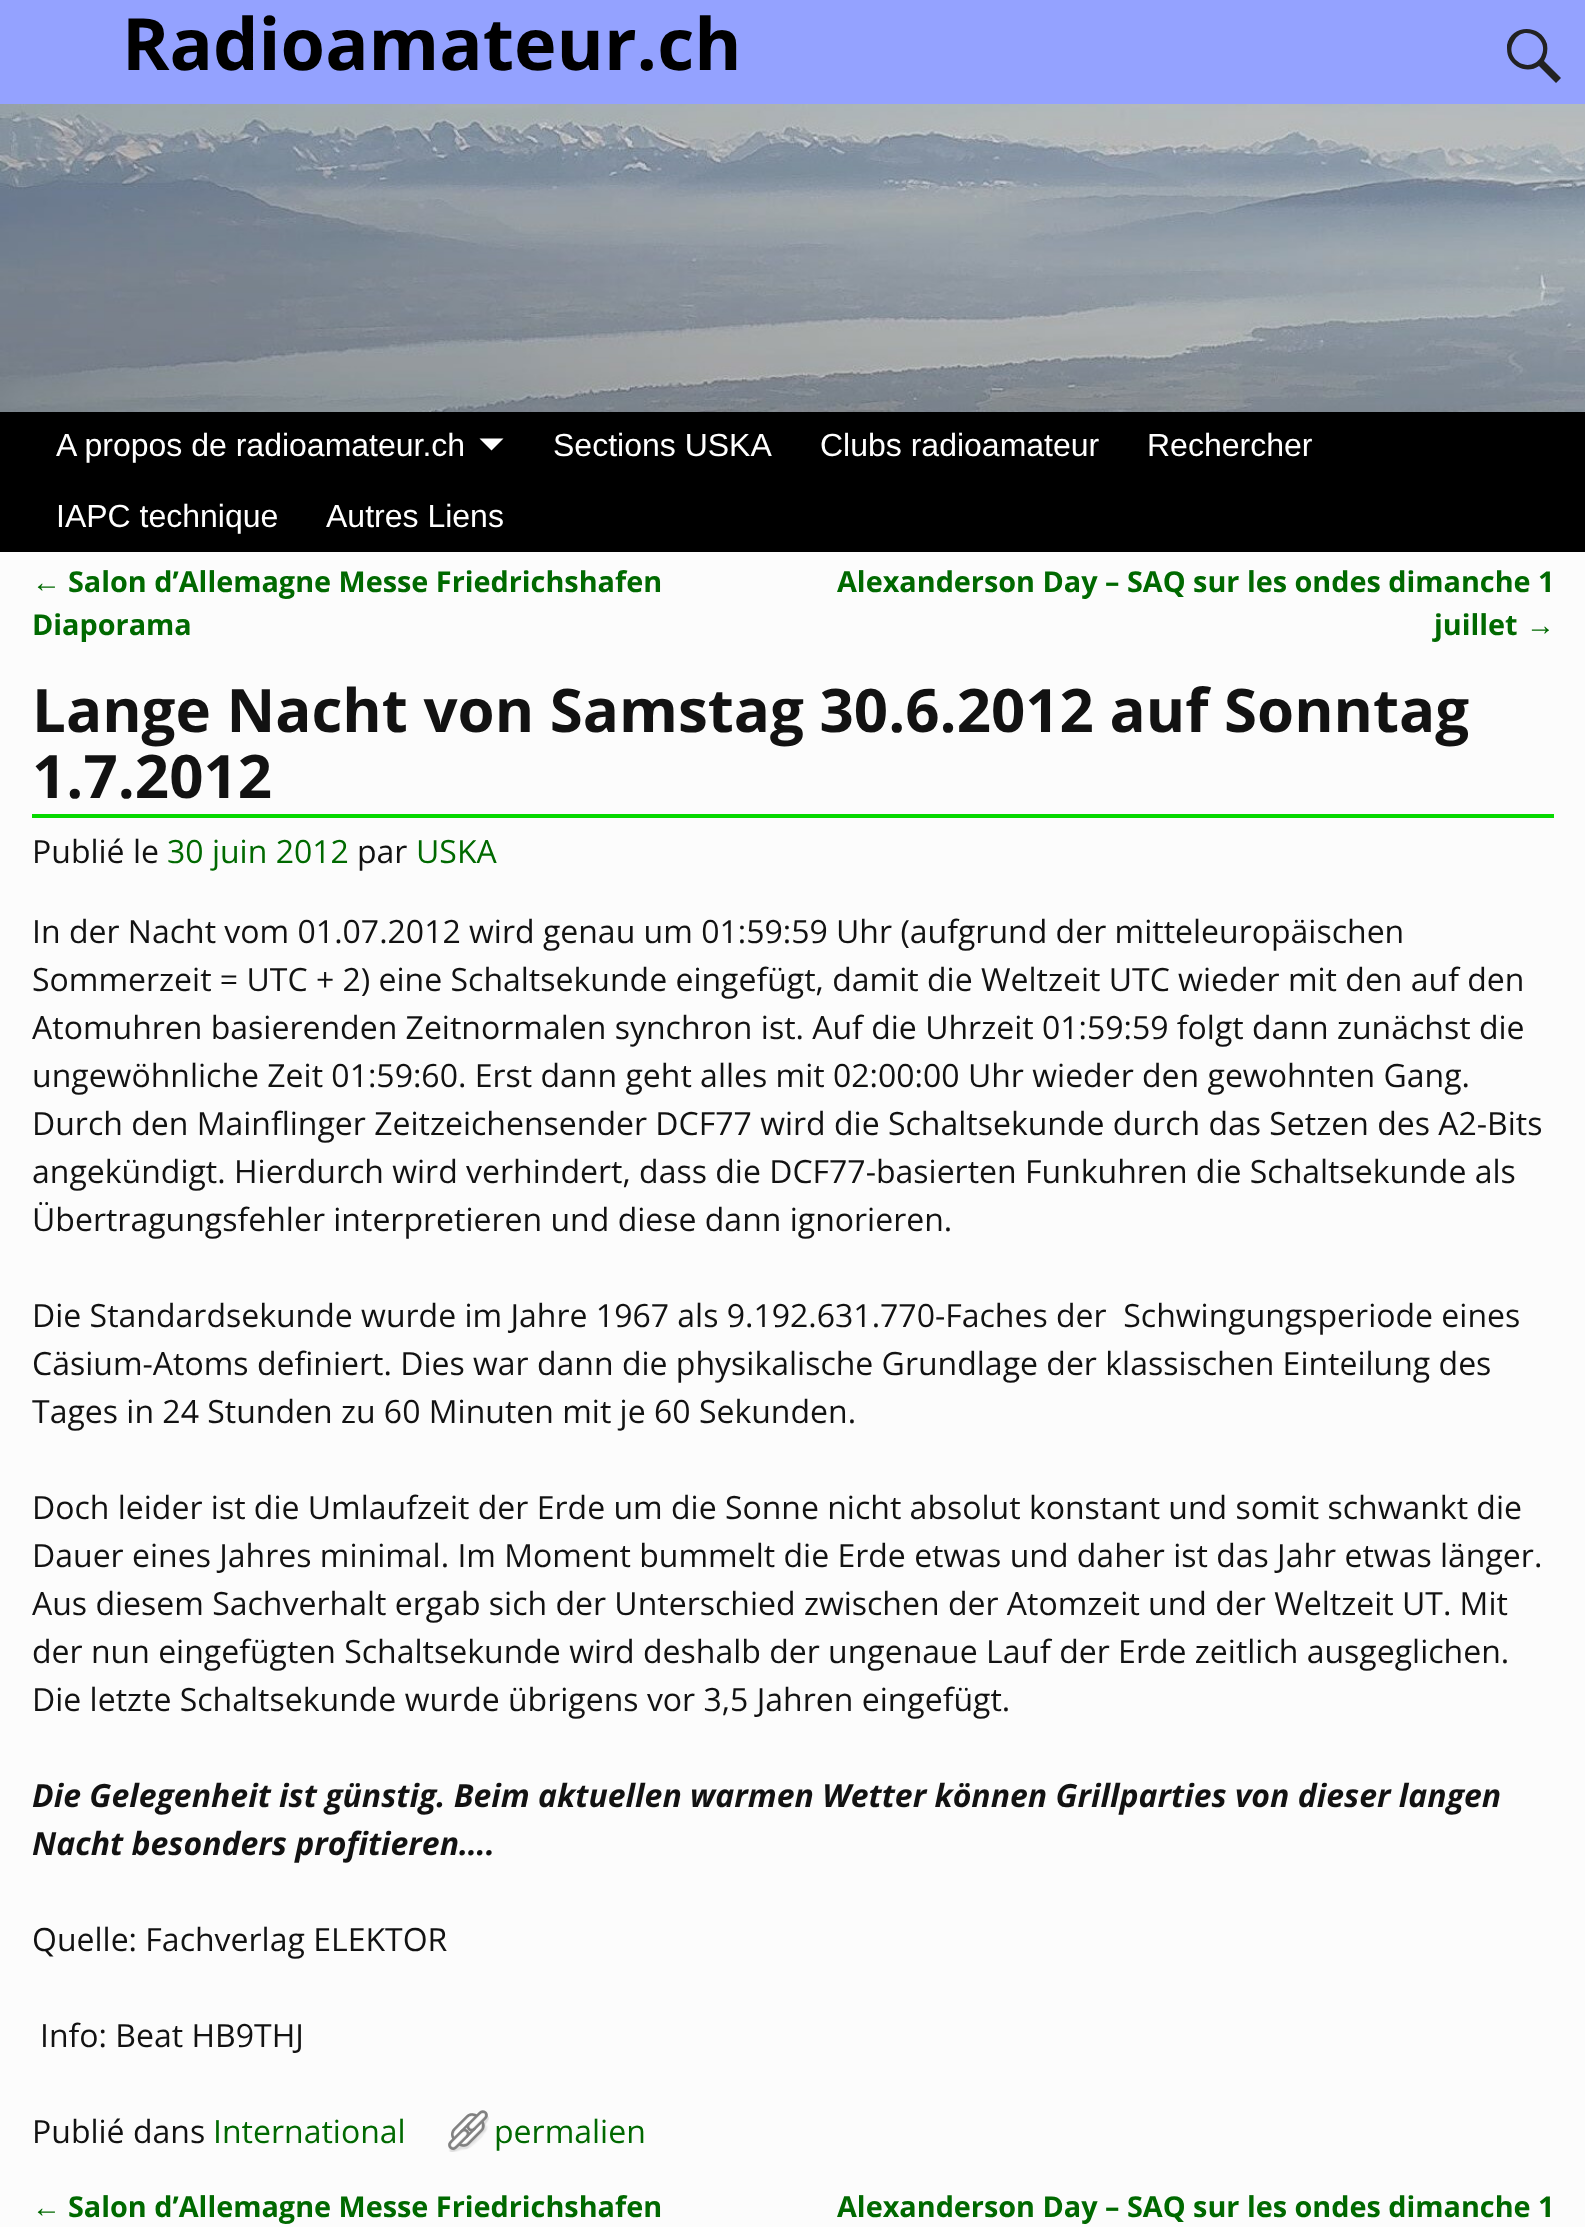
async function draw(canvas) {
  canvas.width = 1585;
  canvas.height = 2227;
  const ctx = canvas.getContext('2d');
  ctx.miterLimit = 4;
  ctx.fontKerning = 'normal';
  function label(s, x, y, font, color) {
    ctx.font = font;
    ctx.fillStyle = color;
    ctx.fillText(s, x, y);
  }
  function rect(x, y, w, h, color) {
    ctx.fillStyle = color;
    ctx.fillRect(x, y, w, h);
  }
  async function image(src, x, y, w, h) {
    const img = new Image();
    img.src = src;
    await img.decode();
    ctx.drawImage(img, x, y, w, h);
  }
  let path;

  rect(0, 0, 1585, 2227, '#fcfcfc');
  rect(0, 0, 1585, 104, '#94a2ff');
  label('Radioamateur.ch', 122, 70, 'bold 72px Open Sans', '#000');
  ctx.fillStyle = '#222';
  path = new Path2D('M1561 78L1556 83L1539 66C1529 73 1515 69 1509 58C1507 54 1507 50 1507 45C1511 24 1541 24 1547 44C1548 50 1547 56 1544 61ZM1514 41C1503 59 1530 75 1541 57C1551 39 1524 23 1514 41Z');
  ctx.fill(path);
  await image('assets/img1.png', 0, 104, 1585, 308);
  rect(0, 412, 1585, 140, '#000');
  label('A propos de radioamateur.ch', 56, 456, '32px Liberation Sans', '#fff');
  path = new Path2D('M479.5 438.5H503.5L491.5 450.5Z');
  ctx.fill(path);
  label('Sections USKA', 553, 456, '32px Liberation Sans', '#fff');
  label('Clubs radioamateur', 820, 456, '32px Liberation Sans', '#fff');
  label('Rechercher', 1147, 456, '32px Liberation Sans', '#fff');
  label('IAPC technique', 56, 527, '32px Liberation Sans', '#fff');
  label('Autres Liens', 326, 527, '32px Liberation Sans', '#fff');
  label('←', 32, 592, '28.8px Liberation Sans', '#006900');
  label('Salon d’Allemagne Messe Friedrichshafen', 68, 592, 'bold 28.8px Open Sans', '#006900');
  label('Diaporama', 32, 635, 'bold 28.8px Open Sans', '#006900');
  label('Alexanderson Day – SAQ sur les ondes dimanche 1', 837, 592, 'bold 28.8px Open Sans', '#006900');
  label('juillet', 1434, 635, 'bold 28.8px Open Sans', '#006900');
  label('→', 1526, 635, '28.8px Liberation Sans', '#006900');
  rect(32, 814, 1522, 4, '#07d900');
  label('Lange Nacht von Samstag 30.6.2012 auf Sonntag', 32, 732, 'bold 60px Open Sans', '#121212');
  label('1.7.2012', 32, 798, 'bold 60px Open Sans', '#121212');
  label('Publié le', 32, 863, '32px Open Sans', '#121212');
  label('30 juin 2012', 167, 863, '32px Open Sans', '#006900');
  label('par', 357, 863, '32px Open Sans', '#121212');
  label('USKA', 416, 863, '32px Open Sans', '#006900');
  label('In der Nacht vom 01.07.2012 wird genau um 01:59:59 Uhr (aufgrund der mitteleuropäischen', 32, 943, '32px Open Sans', '#121212');
  label('Sommerzeit = UTC + 2) eine Schaltsekunde eingefügt, damit die Weltzeit UTC wieder mit den auf den', 32, 991, '32px Open Sans', '#121212');
  label('Atomuhren basierenden Zeitnormalen synchron ist. Auf die Uhrzeit 01:59:59 folgt dann zunächst die', 32, 1039, '32px Open Sans', '#121212');
  label('ungewöhnliche Zeit 01:59:60. Erst dann geht alles mit 02:00:00 Uhr wieder den gewohnten Gang.', 32, 1087, '32px Open Sans', '#121212');
  label('Durch den Mainflinger Zeitzeichensender DCF77 wird die Schaltsekunde durch das Setzen des A2-Bits', 32, 1135, '32px Open Sans', '#121212');
  label('angekündigt. Hierdurch wird verhindert, dass die DCF77-basierten Funkuhren die Schaltsekunde als', 32, 1183, '32px Open Sans', '#121212');
  label('Übertragungsfehler interpretieren und diese dann ignorieren.', 32, 1231, '32px Open Sans', '#121212');
  label('Die Standardsekunde wurde im Jahre 1967 als 9.192.631.770-Faches der  Schwingungsperiode eines', 32, 1327, '32px Open Sans', '#121212');
  label('Cäsium-Atoms definiert. Dies war dann die physikalische Grundlage der klassischen Einteilung des', 32, 1375, '32px Open Sans', '#121212');
  label('Tages in 24 Stunden zu 60 Minuten mit je 60 Sekunden.', 32, 1423, '32px Open Sans', '#121212');
  label('Doch leider ist die Umlaufzeit der Erde um die Sonne nicht absolut konstant und somit schwankt die', 32, 1519, '32px Open Sans', '#121212');
  label('Dauer eines Jahres minimal. Im Moment bummelt die Erde etwas und daher ist das Jahr etwas länger.', 32, 1567, '32px Open Sans', '#121212');
  label('Aus diesem Sachverhalt ergab sich der Unterschied zwischen der Atomzeit und der Weltzeit UT. Mit', 32, 1615, '32px Open Sans', '#121212');
  label('der nun eingefügten Schaltsekunde wird deshalb der ungenaue Lauf der Erde zeitlich ausgeglichen.', 32, 1663, '32px Open Sans', '#121212');
  label('Die letzte Schaltsekunde wurde übrigens vor 3,5 Jahren eingefügt.', 32, 1711, '32px Open Sans', '#121212');
  label('Die Gelegenheit ist günstig. Beim aktuellen warmen Wetter können Grillparties von dieser langen', 32, 1807, 'italic bold 32px Open Sans', '#121212');
  label('Nacht besonders profitieren….', 32, 1855, 'italic bold 32px Open Sans', '#121212');
  label('Quelle: Fachverlag ELEKTOR', 32, 1951, '32px Open Sans', '#121212');
  label('Info: Beat HB9THJ', 40, 2047, '32px Open Sans', '#121212');
  label('Publié dans', 32, 2143, '32px Open Sans', '#121212');
  label('International', 213, 2143, '32px Open Sans', '#006900');
  await image('assets/img2.png', 448, 2110, 41, 42);
  label('permalien', 494, 2143, '32px Open Sans', '#006900');
  label('←', 32, 2217, '28.8px Liberation Sans', '#006900');
  label('Salon d’Allemagne Messe Friedrichshafen', 68, 2217, 'bold 28.8px Open Sans', '#006900');
  label('Alexanderson Day – SAQ sur les ondes dimanche 1', 837, 2217, 'bold 28.8px Open Sans', '#006900');
}

draw(document.querySelector('canvas'));
